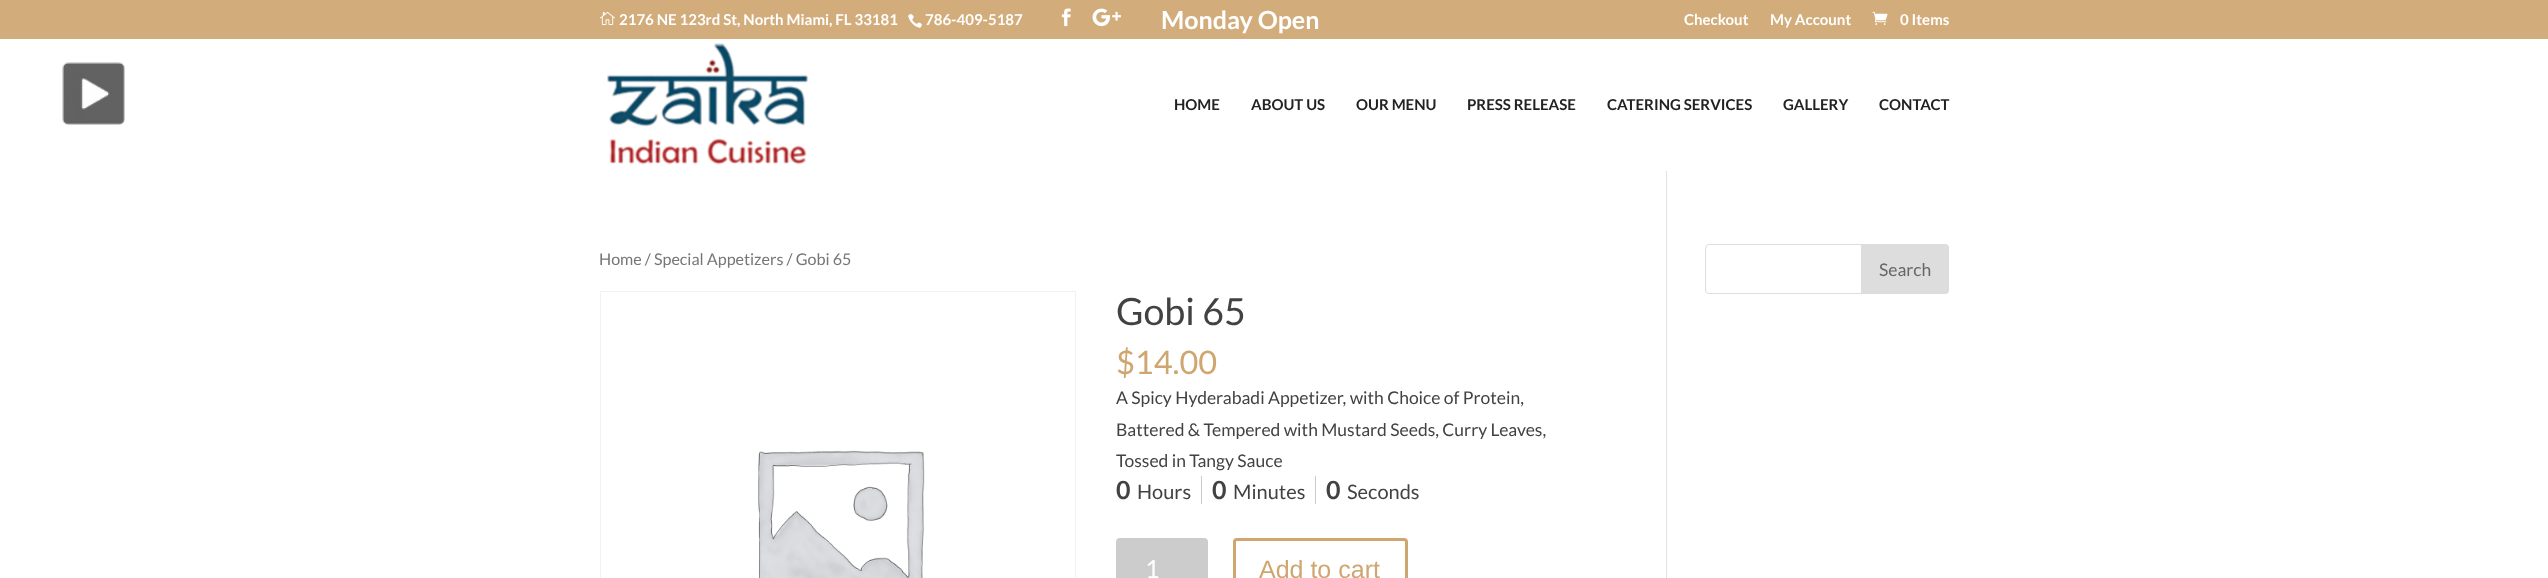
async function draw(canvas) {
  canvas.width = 2548;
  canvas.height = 578;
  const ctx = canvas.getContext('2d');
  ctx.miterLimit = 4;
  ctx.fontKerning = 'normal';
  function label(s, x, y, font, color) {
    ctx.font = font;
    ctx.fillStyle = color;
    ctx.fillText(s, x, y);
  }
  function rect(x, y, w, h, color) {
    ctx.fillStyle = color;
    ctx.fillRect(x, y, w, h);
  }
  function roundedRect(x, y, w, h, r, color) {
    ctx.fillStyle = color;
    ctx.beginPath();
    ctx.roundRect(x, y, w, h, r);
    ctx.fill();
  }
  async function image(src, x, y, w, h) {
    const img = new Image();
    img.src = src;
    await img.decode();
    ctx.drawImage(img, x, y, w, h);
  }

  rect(0, 0, 2548, 578, '#fff');
  rect(0, 0, 2548, 39, '#d2ac7a');
  await image('assets/img1.png', 62, 62, 63, 63);
  await image('assets/img2.png', 600, 11, 15, 14);
  label('2176 NE 123rd St, North Miami, FL 33181', 619, 25, 'bold 15px Lato', '#fff');
  await image('assets/img3.png', 908, 14, 14, 14);
  label('786-409-5187', 925, 25, 'bold 15px Lato', '#fff');
  await image('assets/img4.png', 1061, 8, 10, 19);
  await image('assets/img5.png', 1092, 8, 29, 19);
  label('Monday Open', 1161, 29, 'bold 25px Lato', '#fff');
  label('Checkout', 1684, 25, 'bold 15px Lato', '#fff');
  label('My Account', 1770, 25, 'bold 15px Lato', '#fff');
  await image('assets/img6.png', 1872, 11, 16, 14);
  label('0 Items', 1900, 25, 'bold 15px Lato', '#fff');
  await image('assets/img7.png', 607, 43, 202, 122);
  label('HOME', 1174, 110, 'bold 15px Lato', '#222');
  label('ABOUT US', 1251, 110, 'bold 15px Lato', '#222');
  label('OUR MENU', 1356, 110, 'bold 15px Lato', '#222');
  label('PRESS RELEASE', 1467, 110, 'bold 15px Lato', '#222');
  label('CATERING SERVICES', 1607, 110, 'bold 15px Lato', '#222');
  label('GALLERY', 1783, 110, 'bold 15px Lato', '#222');
  label('CONTACT', 1879, 110, 'bold 15px Lato', '#222');
  rect(1666, 171, 1, 407, '#e2e2e2');
  label('Home / Special Appetizers / Gobi 65', 599, 265, '16.1px Lato', '#767676');
  ctx.strokeStyle = '#f2f2f2';
  ctx.strokeRect(600.5, 291.5, 475, 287);
  await image('assets/img8.png', 758, 450, 167, 128);
  label('Gobi 65', 1116, 325, '37.5px Lato', '#424242');
  label('$14.00', 1116, 374, '32.5px Lato', '#cfa670');
  label('A Spicy Hyderabadi Appetizer, with Choice of Protein,', 1116, 404, '17.5px Lato', '#424242');
  label('Battered & Tempered with Mustard Seeds, Curry Leaves,', 1116, 436, '17.5px Lato', '#424242');
  label('Tossed in Tangy Sauce', 1116, 467, '17.5px Lato', '#424242');
  rect(1201, 476, 1, 28, '#ccc');
  label('0', 1116, 499, 'bold 25px Lato', '#424242');
  label('Hours', 1137, 499, '20px Lato', '#424242');
  rect(1315, 476, 1, 28, '#ccc');
  label('0', 1212, 499, 'bold 25px Lato', '#424242');
  label('Minutes', 1233, 499, '20px Lato', '#424242');
  label('0', 1326, 499, 'bold 25px Lato', '#424242');
  label('Seconds', 1347, 499, '20px Lato', '#424242');
  roundedRect(1116, 538, 92, 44, 4, '#ccc');
  label('1', 1145, 578, '25px Lato', '#fff');
  ctx.beginPath();
  ctx.roundRect(1234.5, 539.5, 172, 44, 2.5);
  ctx.strokeStyle = '#cfa670';
  ctx.lineWidth = 3;
  ctx.stroke();
  label('Add to cart', 1259, 578, '25px Liberation Sans', '#cfa670');
  ctx.beginPath();
  ctx.roundRect(1705.5, 244.5, 243, 49, 3.5);
  ctx.strokeStyle = '#ddd';
  ctx.lineWidth = 1;
  ctx.stroke();
  ctx.fillStyle = '#ddd';
  ctx.beginPath();
  ctx.roundRect(1861.5, 244.5, 87, 49, [0, 3.5, 3.5, 0]);
  ctx.fill();
  ctx.stroke();
  label('Search', 1879, 276, '17.5px Lato', '#666');
}

draw(document.querySelector('canvas'));
